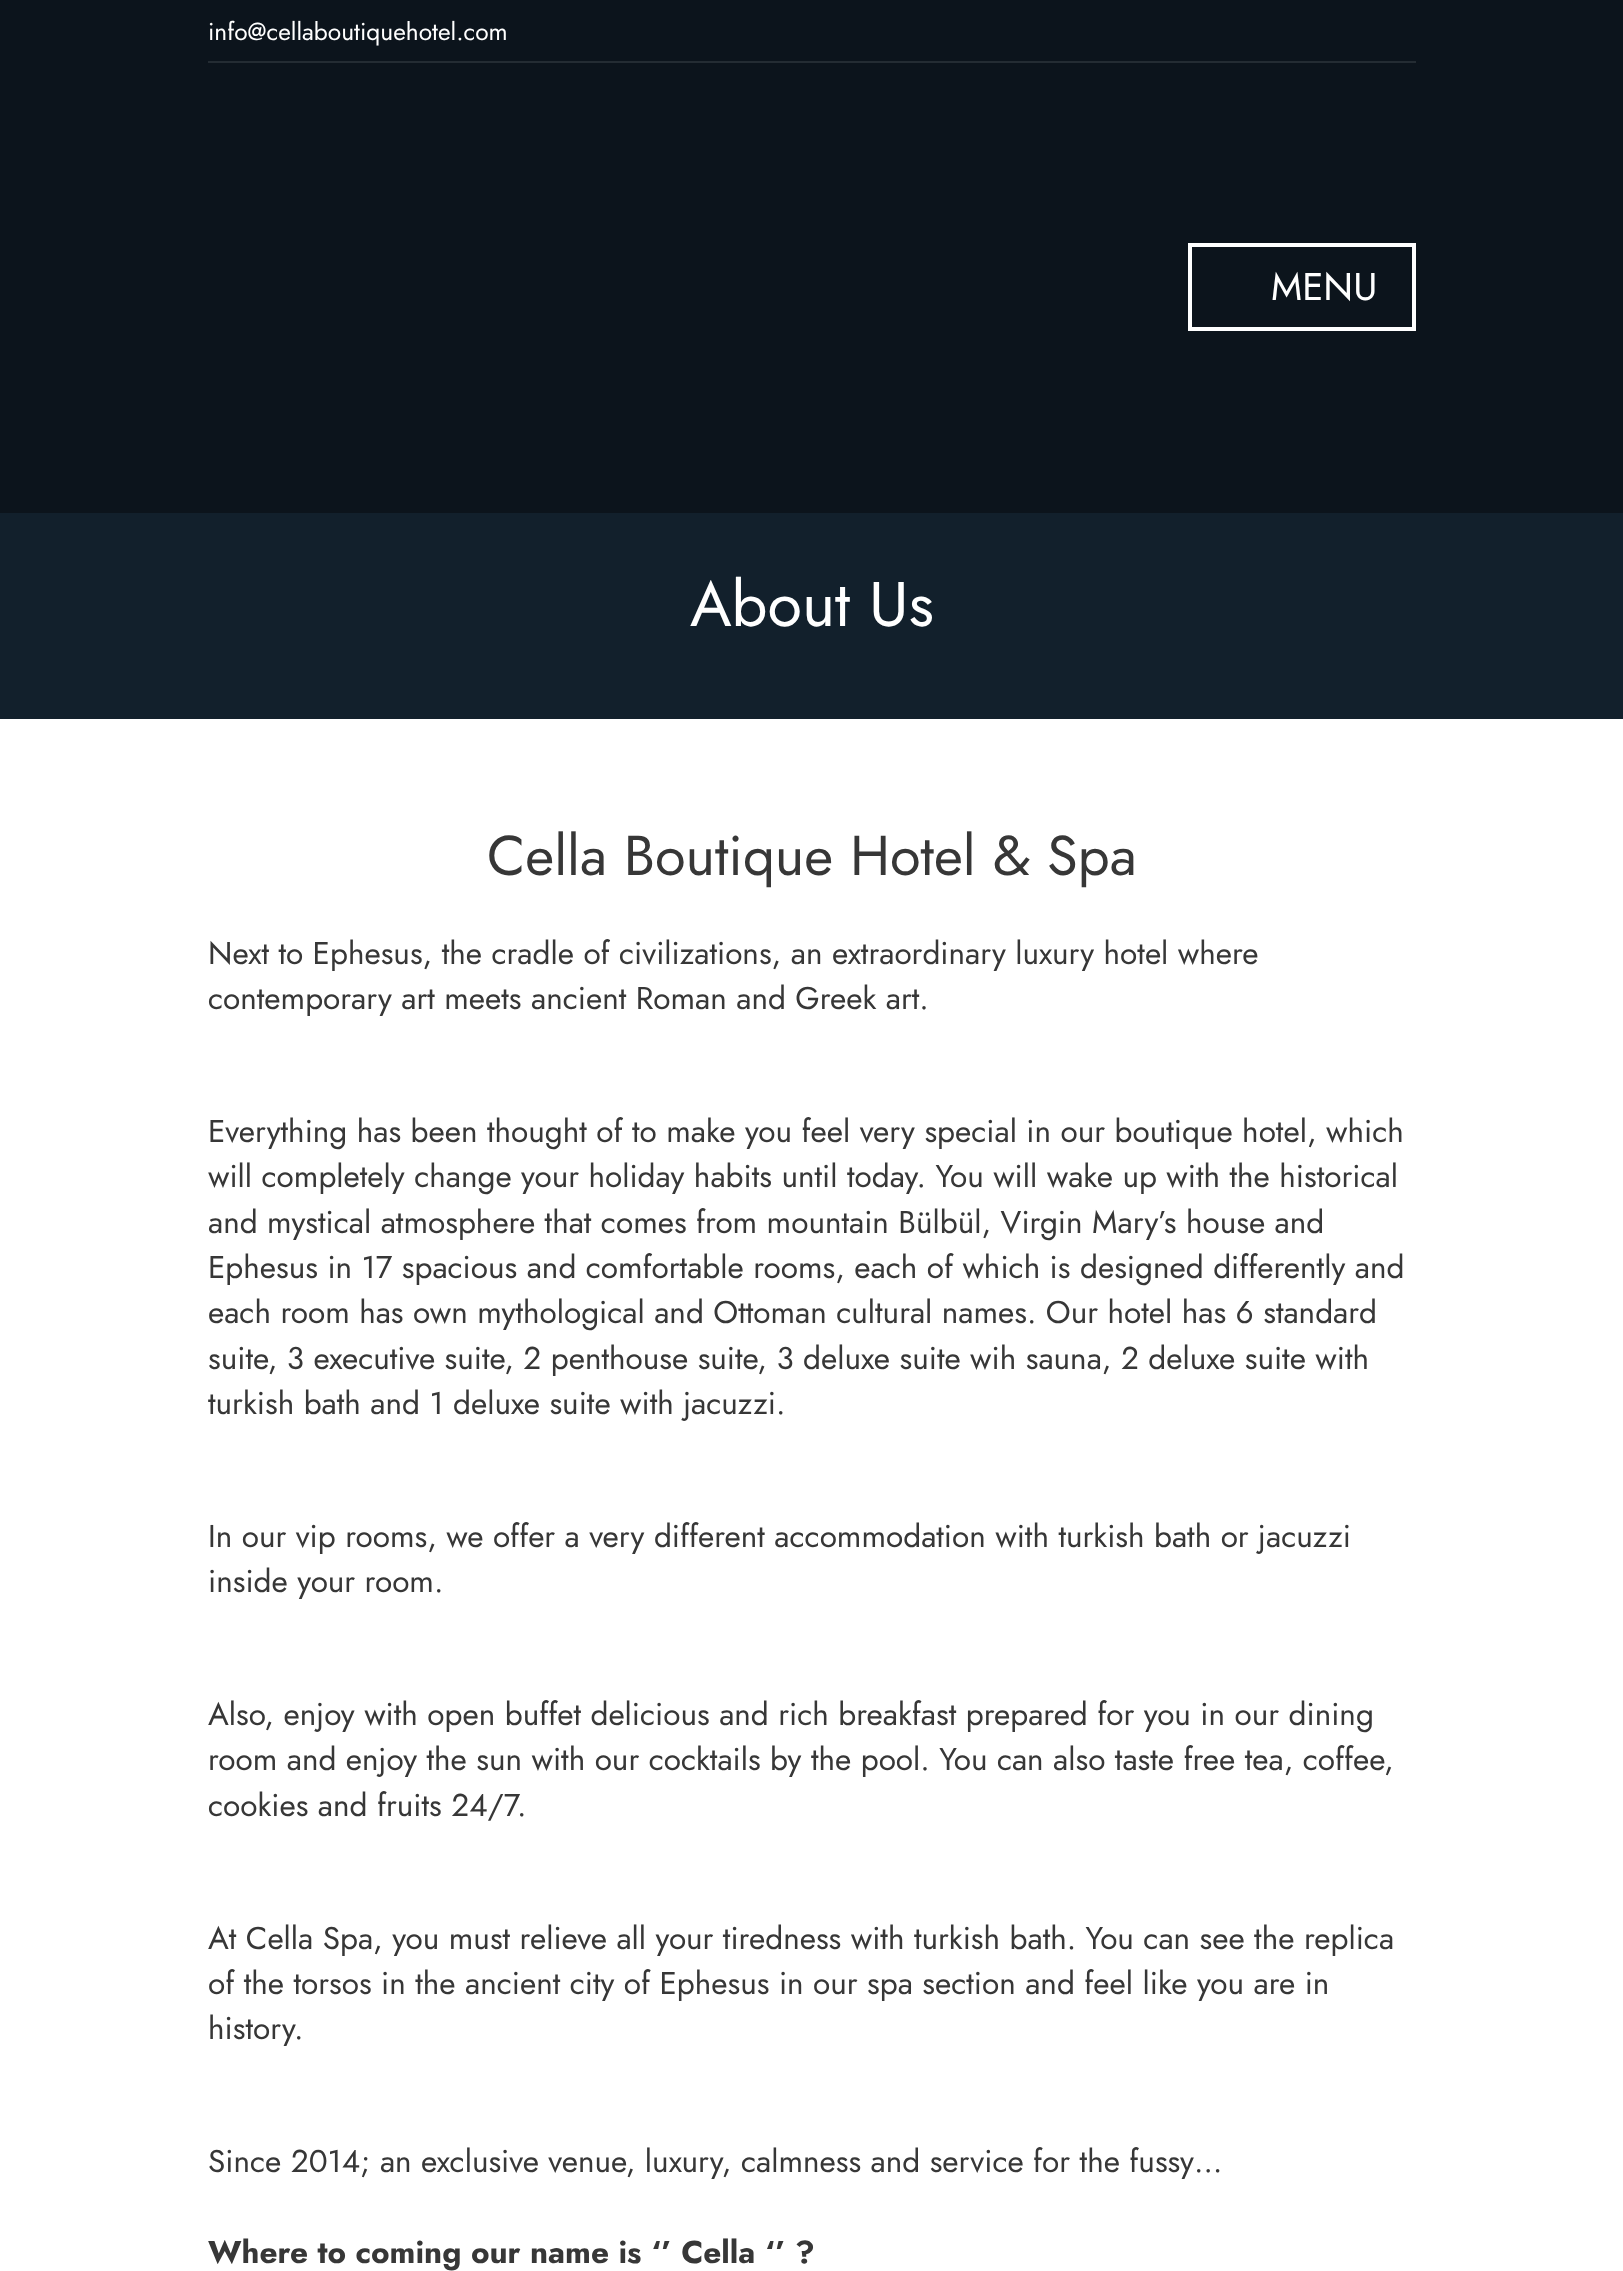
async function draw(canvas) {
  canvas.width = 1623;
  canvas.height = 2271;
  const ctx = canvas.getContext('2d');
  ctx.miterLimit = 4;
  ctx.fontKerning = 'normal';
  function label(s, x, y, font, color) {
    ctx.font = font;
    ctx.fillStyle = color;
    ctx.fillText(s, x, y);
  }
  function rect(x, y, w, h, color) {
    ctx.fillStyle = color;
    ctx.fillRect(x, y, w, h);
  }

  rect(0, 0, 1623, 2271, '#fff');
  rect(0, 0, 1623, 513, '#0c141c');
  label('info@cellaboutiquehotel.com', 208, 40, '24.5px Jost', '#fff');
  rect(208, 61, 1208, 2, '#242c33');
  ctx.strokeStyle = '#fff';
  ctx.lineWidth = 4;
  ctx.strokeRect(1190, 245, 224, 84);
  label('MENU', 1271, 300, '38.5px Jost', '#fff');
  rect(0, 513, 1623, 206, '#12202c');
  label('About Us', 690, 626, '63px Jost', '#fff');
  label('Cella Boutique Hotel & Spa', 487, 875, '56px Jost', '#373737');
  label('Next to Ephesus, the cradle of civilizations, an extraordinary luxury hotel where', 208, 964, '31.5px Jost', '#373737');
  label('contemporary art meets ancient Roman and Greek art.', 208, 1009, '31.5px Jost', '#373737');
  label('Everything has been thought of to make you feel very special in our boutique hotel, which', 208, 1142, '31.5px Jost', '#373737');
  label('will completely change your holiday habits until today. You will wake up with the historical', 208, 1187, '31.5px Jost', '#373737');
  label('and mystical atmosphere that comes from mountain Bülbül, Virgin Mary’s house and', 208, 1233, '31.5px Jost', '#373737');
  label('Ephesus in 17 spacious and comfortable rooms, each of which is designed differently and', 208, 1278, '31.5px Jost', '#373737');
  label('each room has own mythological and Ottoman cultural names. Our hotel has 6 standard', 208, 1323, '31.5px Jost', '#373737');
  label('suite, 3 executive suite, 2 penthouse suite, 3 deluxe suite wih sauna, 2 deluxe suite with', 208, 1369, '31.5px Jost', '#373737');
  label('turkish bath and 1 deluxe suite with jacuzzi.', 208, 1414, '31.5px Jost', '#373737');
  label('In our vip rooms, we offer a very different accommodation with turkish bath or jacuzzi', 208, 1547, '31.5px Jost', '#373737');
  label('inside your room.', 208, 1592, '31.5px Jost', '#373737');
  label('Also, enjoy with open buffet delicious and rich breakfast prepared for you in our dining', 208, 1725, '31.5px Jost', '#373737');
  label('room and enjoy the sun with our cocktails by the pool. You can also taste free tea, coffee,', 208, 1770, '31.5px Jost', '#373737');
  label('cookies and fruits 24/7.', 208, 1816, '31.5px Jost', '#373737');
  label('At Cella Spa, you must relieve all your tiredness with turkish bath. You can see the replica', 208, 1949, '31.5px Jost', '#373737');
  label('of the torsos in the ancient city of Ephesus in our spa section and feel like you are in', 208, 1994, '31.5px Jost', '#373737');
  label('history.', 208, 2039, '31.5px Jost', '#373737');
  label('Since 2014; an exclusive venue, luxury, calmness and service for the fussy…', 208, 2172, '31.5px Jost', '#373737');
  label('Where to coming our name is ‘’ Cella ‘’ ?', 208, 2263, 'bold 31.5px Jost', '#373737');
}

draw(document.querySelector('canvas'));
